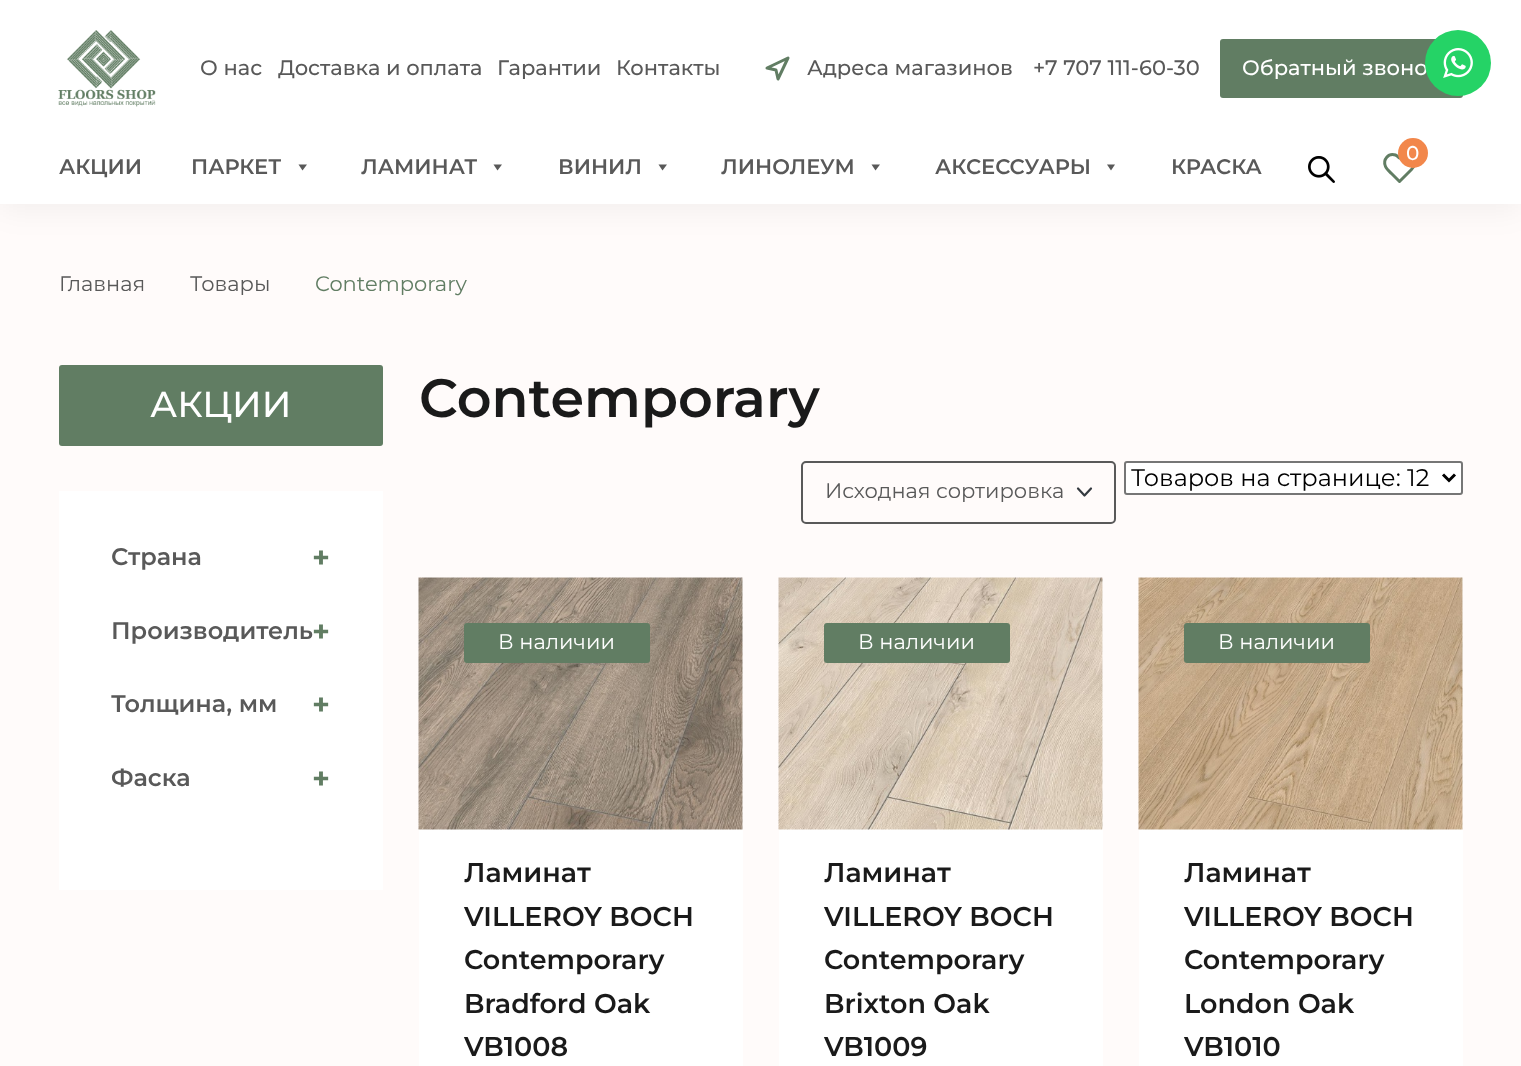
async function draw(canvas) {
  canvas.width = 1521;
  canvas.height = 1066;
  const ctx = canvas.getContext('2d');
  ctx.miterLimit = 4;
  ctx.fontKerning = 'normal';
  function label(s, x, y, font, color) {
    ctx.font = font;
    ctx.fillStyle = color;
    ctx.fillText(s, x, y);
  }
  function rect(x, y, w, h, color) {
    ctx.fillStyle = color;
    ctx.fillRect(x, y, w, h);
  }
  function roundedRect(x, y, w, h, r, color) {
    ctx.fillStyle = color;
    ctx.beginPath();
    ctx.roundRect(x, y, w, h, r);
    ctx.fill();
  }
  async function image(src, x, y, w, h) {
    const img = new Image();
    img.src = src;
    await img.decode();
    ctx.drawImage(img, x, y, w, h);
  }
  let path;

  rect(0, 0, 1521, 1066, '#fffbfa');
  ctx.fillStyle = '#0000000d';
  ctx.filter = 'blur(15px)';
  ctx.beginPath();
  ctx.rect(0, 143, 1521, 67);
  ctx.fill();
  ctx.filter = 'none';
  rect(0, 0, 1521, 204, '#fff');
  await image('assets/img1.png', 58, 30, 98, 77);
  label('О нас', 200, 75, '500 21px Montserrat', '#595959');
  label('Доставка и оплата', 278, 75, '500 21px Montserrat', '#595959');
  label('Гарантии', 497, 75, '500 21px Montserrat', '#595959');
  label('Контакты', 616, 75, '500 21px Montserrat', '#595959');
  path = new Path2D('M767 68L788 58L778 79L776 70Z');
  ctx.strokeStyle = '#617d63';
  ctx.lineWidth = 3;
  ctx.lineCap = 'round';
  ctx.lineJoin = 'round';
  ctx.stroke(path);
  label('Адреса магазинов', 807, 75, '500 21px Montserrat', '#595959');
  label('+7 707 111-60-30', 1033, 75, '500 21px Montserrat', '#595959');
  roundedRect(1220, 39, 243, 59, 3, '#617d63');
  label('Обратный звоно', 1242, 75, '500 21px Montserrat', '#fff');
  path = new Path2D('M1412 157C1408 153 1403 154.5 1399.5 158C1398 157 1397 155.5 1395.5 155C1388.5 152.5 1382.5 159.5 1385.5 166.5C1386.5 169 1389.5 171.5 1391.5 173.5L1399.5 181.5L1411.5 169.5C1415.5 165.5 1415.5 160 1412 157Z');
  ctx.stroke(path);
  ctx.fillStyle = '#f2874b';
  ctx.beginPath();
  ctx.arc(1413, 153, 15, 0, 2 * Math.PI);
  ctx.fill();
  label('0', 1406, 160, '500 20px Montserrat', '#fff');
  label('АКЦИИ', 59, 174, '600 21px Montserrat', '#595959');
  label('ПАРКЕТ', 191, 174, '600 21px Montserrat', '#595959');
  path = new Path2D('M307 164.5L302.5 170.5L298.5 164.5Z');
  ctx.fill(path);
  label('ЛАМИНАТ', 361, 174, '600 21px Montserrat', '#595959');
  path = new Path2D('M502 164.5L497.5 170.5L493.5 164.5Z');
  ctx.fill(path);
  label('ВИНИЛ', 558, 174, '600 21px Montserrat', '#595959');
  path = new Path2D('M667 164.5L662.5 170.5L658.5 164.5Z');
  ctx.fill(path);
  label('ЛИНОЛЕУМ', 721, 174, '600 21px Montserrat', '#595959');
  path = new Path2D('M880 164.5L875.5 170.5L871.5 164.5Z');
  ctx.fill(path);
  label('АКСЕССУАРЫ', 935, 174, '600 21px Montserrat', '#595959');
  path = new Path2D('M1115 164.5L1111 170.5L1107 164.5Z');
  ctx.fill(path);
  label('КРАСКА', 1171, 174, '600 21px Montserrat', '#595959');
  await image('assets/img2.png', 1308, 156, 27, 27);
  label('Главная', 59, 291, '21px Montserrat', '#595959');
  label('Товары', 190, 291, '21px Montserrat', '#595959');
  label('Contemporary', 315, 291, '21px Montserrat', '#617d63');
  roundedRect(59, 365, 324, 81, 3, '#617d63');
  label('АКЦИИ', 150, 417, '500 36px Montserrat', '#fff');
  rect(59, 491, 324, 399, '#fff');
  label('Страна', 111, 565, '600 24px Montserrat', '#595959');
  label('+', 312, 568, 'bold 30px Montserrat', '#617d63');
  label('Производитель', 111, 639, '600 24px Montserrat', '#595959');
  label('+', 312, 642, 'bold 30px Montserrat', '#617d63');
  label('Толщина, мм', 111, 712, '600 24px Montserrat', '#595959');
  label('+', 312, 715, 'bold 30px Montserrat', '#617d63');
  label('Фаска', 111, 786, '600 24px Montserrat', '#595959');
  label('+', 312, 789, 'bold 30px Montserrat', '#617d63');
  label('Contemporary', 419, 417, '600 54px Montserrat', '#1a1a1a');
  ctx.fillStyle = '#fff';
  ctx.beginPath();
  ctx.roundRect(1125, 462, 337, 32, 2);
  ctx.fill();
  ctx.strokeStyle = '#767676';
  ctx.lineWidth = 2;
  ctx.lineJoin = 'miter';
  ctx.stroke();
  path = new Path2D('M1443 474.5L1449 480.5L1455 474.5');
  ctx.strokeStyle = '#000';
  ctx.lineWidth = 3;
  ctx.lineCap = 'butt';
  ctx.stroke(path);
  label('Товаров на странице: 12', 1131, 486, '24px Montserrat', '#000');
  path = new Path2D('M1078 488.5L1084.5 495.5L1091 488.5');
  ctx.strokeStyle = '#343a40';
  ctx.lineWidth = 2.2;
  ctx.lineCap = 'round';
  ctx.lineJoin = 'round';
  ctx.stroke(path);
  ctx.beginPath();
  ctx.roundRect(802, 462, 313, 61, 4);
  ctx.strokeStyle = '#595959';
  ctx.lineWidth = 2;
  ctx.lineJoin = 'miter';
  ctx.stroke();
  label('Исходная сортировка', 825, 498, '21px Montserrat', '#595959');
  rect(419, 578, 324, 488, '#fff');
  await image('assets/img3.png', 418, 577, 325, 253);
  roundedRect(464, 623, 186, 40, 3, '#617d63');
  label('В наличии', 498, 649, '21px Montserrat', '#fff');
  label('Ламинат', 464, 882, '600 27px Montserrat', '#1a1a1a');
  label('VILLEROY BOCH', 464, 926, '600 27px Montserrat', '#1a1a1a');
  label('Contemporary', 464, 969, '600 27px Montserrat', '#1a1a1a');
  label('Bradford Oak', 464, 1013, '600 27px Montserrat', '#1a1a1a');
  label('VB1008', 464, 1056, '600 27px Montserrat', '#1a1a1a');
  rect(779, 578, 324, 488, '#fff');
  await image('assets/img4.png', 778, 577, 325, 253);
  roundedRect(824, 623, 186, 40, 3, '#617d63');
  label('В наличии', 858, 649, '21px Montserrat', '#fff');
  label('Ламинат', 824, 882, '600 27px Montserrat', '#1a1a1a');
  label('VILLEROY BOCH', 824, 926, '600 27px Montserrat', '#1a1a1a');
  label('Contemporary', 824, 969, '600 27px Montserrat', '#1a1a1a');
  label('Brixton Oak', 824, 1013, '600 27px Montserrat', '#1a1a1a');
  label('VB1009', 824, 1056, '600 27px Montserrat', '#1a1a1a');
  rect(1139, 578, 324, 488, '#fff');
  await image('assets/img5.png', 1138, 577, 325, 253);
  roundedRect(1184, 623, 186, 40, 3, '#617d63');
  label('В наличии', 1218, 649, '21px Montserrat', '#fff');
  label('Ламинат', 1184, 882, '600 27px Montserrat', '#1a1a1a');
  label('VILLEROY BOCH', 1184, 926, '600 27px Montserrat', '#1a1a1a');
  label('Contemporary', 1184, 969, '600 27px Montserrat', '#1a1a1a');
  label('London Oak', 1184, 1013, '600 27px Montserrat', '#1a1a1a');
  label('VB1010', 1184, 1056, '600 27px Montserrat', '#1a1a1a');
  ctx.fillStyle = '#25d366';
  ctx.beginPath();
  ctx.arc(1458, 63, 33, 0, 2 * Math.PI);
  ctx.fill();
  await image('assets/img6.png', 1443, 48, 30, 30);
}

draw(document.querySelector('canvas'));
